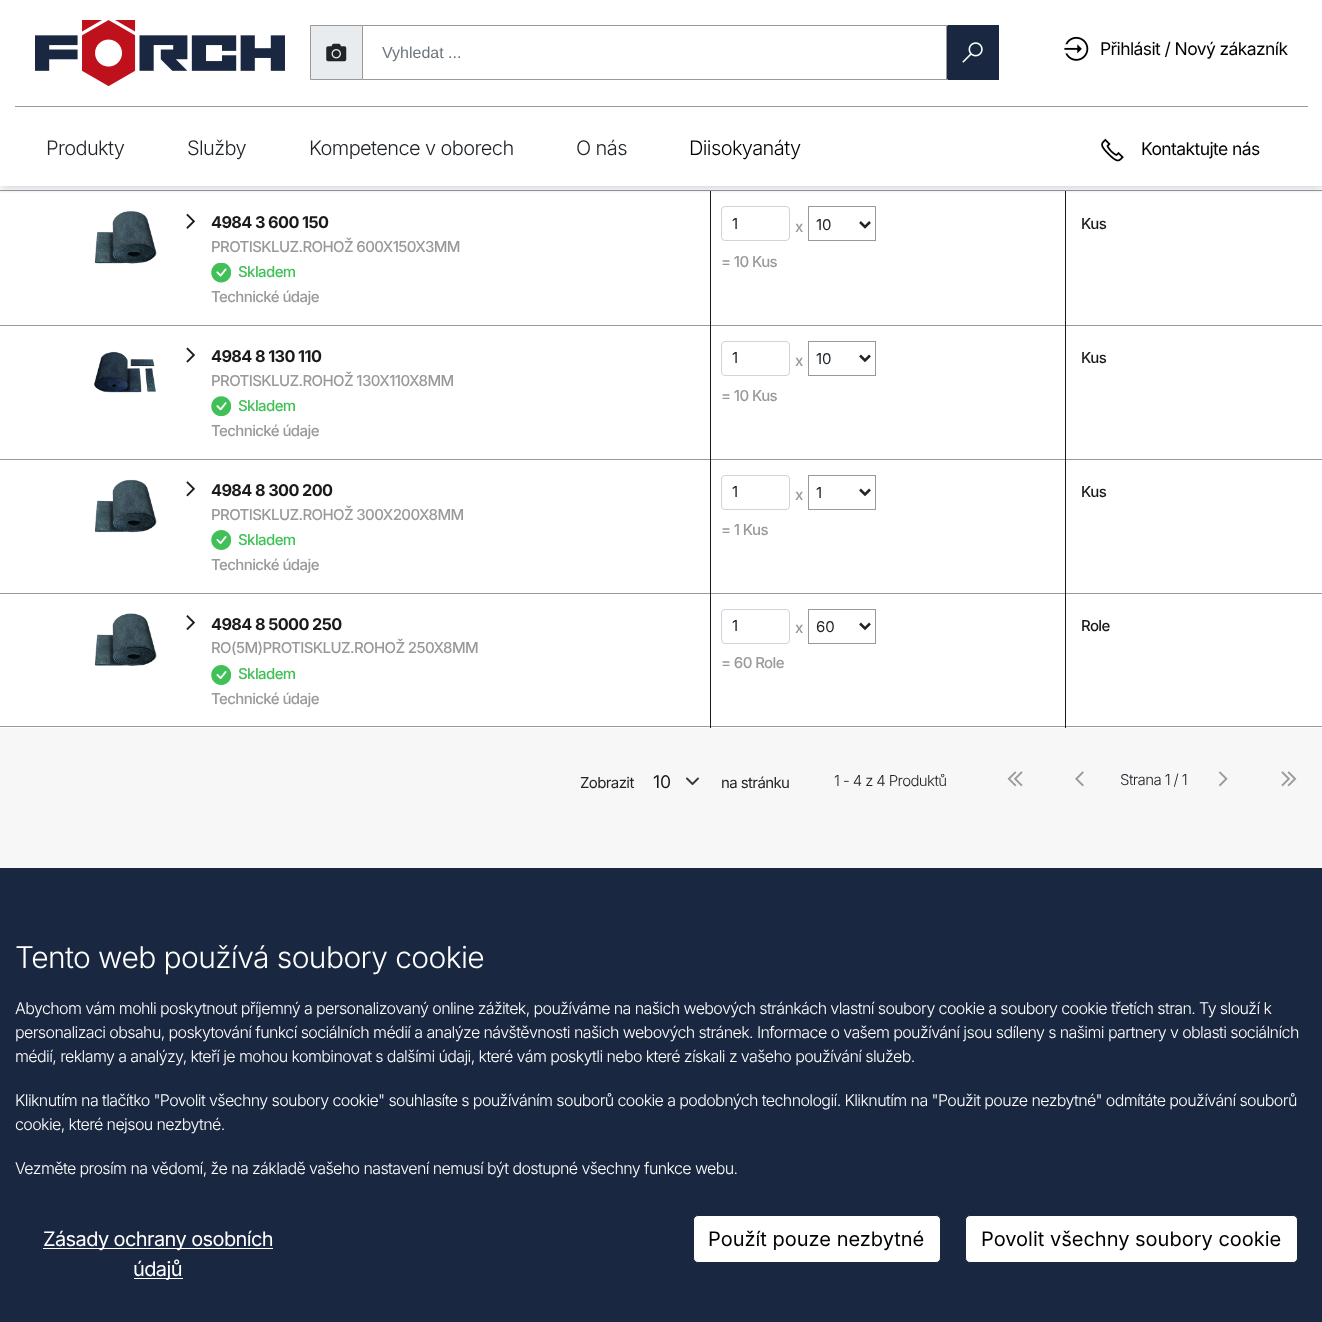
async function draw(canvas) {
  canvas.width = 1322;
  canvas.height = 1322;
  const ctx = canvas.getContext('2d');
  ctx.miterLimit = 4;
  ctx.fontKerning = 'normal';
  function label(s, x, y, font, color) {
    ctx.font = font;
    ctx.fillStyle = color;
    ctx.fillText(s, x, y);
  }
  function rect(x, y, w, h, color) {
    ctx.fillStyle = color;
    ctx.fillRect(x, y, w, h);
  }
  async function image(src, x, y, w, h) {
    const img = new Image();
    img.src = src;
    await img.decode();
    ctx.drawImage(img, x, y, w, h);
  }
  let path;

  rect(0, 0, 1322, 1322, '#f8f7f8');
  rect(0, 0, 1322, 728, '#fff');
  await image('assets/img1.png', 35, 20, 250, 67);
  ctx.fillStyle = '#e9ecef';
  ctx.beginPath();
  ctx.rect(310.5, 25.5, 52, 54);
  ctx.fill();
  ctx.strokeStyle = '#999';
  ctx.stroke();
  await image('assets/img2.png', 326, 43, 21, 19);
  rect(947, 25, 52, 55, '#1a2740');
  rect(363, 25, 585, 1, '#999');
  rect(946, 25, 1, 55, '#999');
  rect(363, 79, 585, 1, '#999');
  await image('assets/img3.png', 962, 42, 21, 21);
  await image('assets/img4.png', 1064, 36, 25, 25);
  rect(15, 106, 1293, 1, '#999');
  await image('assets/img5.png', 1101, 138, 23, 24);
  rect(0, 190, 1322, 1, '#999');
  rect(0, 325, 1322, 1, '#999');
  rect(710, 191, 1, 135, '#1a1a1a');
  rect(1065, 191, 1, 135, '#1a1a1a');
  ctx.save();
  ctx.beginPath();
  ctx.rect(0, 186, 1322, 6);
  ctx.clip();
  ctx.fillStyle = '#16253f0f';
  ctx.filter = 'blur(4px)';
  ctx.beginPath();
  ctx.rect(0, 4, 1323, 186);
  ctx.fill();
  ctx.filter = 'none';
  ctx.restore();
  ctx.save();
  ctx.beginPath();
  ctx.rect(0, 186, 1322, 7);
  ctx.clip();
  ctx.fillStyle = '#16253f1a';
  ctx.filter = 'blur(4px)';
  ctx.beginPath();
  ctx.rect(0, 4, 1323, 186);
  ctx.fill();
  ctx.filter = 'none';
  ctx.restore();
  label('Vyhledat ...', 382, 58, '16px Liberation Sans', '#6c757d');
  ctx.letterSpacing = '-0.6px';
  label('Přihlásit / Nový zákazník', 1100, 55, '17.5px Inter', '#000');
  label('Produkty', 46, 155, '300 20px Inter', '#212529');
  label('Služby', 187, 155, '300 20px Inter', '#212529');
  label('Kompetence v oborech', 309, 155, '300 20px Inter', '#212529');
  label('O nás', 576, 155, '300 20px Inter', '#212529');
  label('Diisokyanáty', 689, 155, '300 20px Inter', '#000');
  label('Kontaktujte nás', 1141, 155, '17.5px Inter', '#000');
  await image('assets/img6.png', 94, 211, 63, 53);
  await image('assets/img7.png', 186, 213, 10, 16);
  label('4984 3 600 150', 211, 228, 'bold 16.25px Inter', '#1a1a1a');
  label('PROTISKLUZ.ROHOŽ 600X150X3MM', 211, 252, '500 15px Inter', '#999');
  await image('assets/img8.png', 211, 263, 20, 20);
  label('Skladem', 238, 277, '500 15px Inter', '#40c057');
  label('Technické údaje', 211, 302, '500 15px Inter', '#999');
  ctx.beginPath();
  ctx.roundRect(721.5, 206.5, 68, 34, 3.5);
  ctx.strokeStyle = '#ced4da';
  ctx.stroke();
  ctx.letterSpacing = '0px';
  label('1', 732, 229, '15px Inter', '#212529');
  ctx.letterSpacing = '-0.6px';
  label('x', 795, 232, '500 15px Inter', '#999');
  ctx.strokeStyle = '#999';
  ctx.strokeRect(808.5, 206.5, 67, 34);
  path = new Path2D('M860 222L865 227L870 222');
  ctx.strokeStyle = '#212529';
  ctx.lineWidth = 2.5;
  ctx.stroke(path);
  ctx.letterSpacing = '0px';
  label('10', 816, 230, '15px Inter', '#212529');
  ctx.letterSpacing = '-0.6px';
  label('= 10 Kus', 721, 267, '500 15px Inter', '#999');
  label('Kus', 1081, 229, '500 15px Inter', '#1a1a1a');
  await image('assets/img9.png', 93, 351, 63, 42);
  await image('assets/img10.png', 186, 347, 9, 16);
  label('4984 8 130 110', 211, 362, 'bold 16.25px Inter', '#1a1a1a');
  label('PROTISKLUZ.ROHOŽ 130X110X8MM', 211, 386, '500 15px Inter', '#999');
  await image('assets/img11.png', 211, 396, 20, 20);
  label('Skladem', 238, 411, '500 15px Inter', '#40c057');
  label('Technické údaje', 211, 436, '500 15px Inter', '#999');
  rect(0, 459, 1322, 1, '#999');
  rect(710, 326, 1, 134, '#1a1a1a');
  ctx.beginPath();
  ctx.roundRect(721.5, 341.5, 68, 34, 3.5);
  ctx.strokeStyle = '#ced4da';
  ctx.lineWidth = 1;
  ctx.stroke();
  ctx.letterSpacing = '0px';
  label('1', 732, 363, '15px Inter', '#212529');
  ctx.letterSpacing = '-0.6px';
  label('x', 795, 366, '500 15px Inter', '#999');
  ctx.strokeStyle = '#999';
  ctx.strokeRect(808.5, 341.5, 67, 34);
  path = new Path2D('M860 355.5L865 360.5L870 355.5');
  ctx.strokeStyle = '#212529';
  ctx.lineWidth = 2.5;
  ctx.stroke(path);
  ctx.letterSpacing = '0px';
  label('10', 816, 364, '15px Inter', '#212529');
  ctx.letterSpacing = '-0.6px';
  label('= 10 Kus', 721, 401, '500 15px Inter', '#999');
  rect(1065, 326, 1, 134, '#1a1a1a');
  label('Kus', 1081, 363, '500 15px Inter', '#1a1a1a');
  await image('assets/img12.png', 94, 479, 63, 54);
  await image('assets/img13.png', 186, 481, 10, 16);
  label('4984 8 300 200', 211, 496, 'bold 16.25px Inter', '#1a1a1a');
  label('PROTISKLUZ.ROHOŽ 300X200X8MM', 211, 520, '500 15px Inter', '#999');
  await image('assets/img14.png', 211, 530, 20, 20);
  label('Skladem', 238, 545, '500 15px Inter', '#40c057');
  label('Technické údaje', 211, 570, '500 15px Inter', '#999');
  rect(0, 593, 1322, 1, '#999');
  rect(710, 460, 1, 134, '#1a1a1a');
  ctx.beginPath();
  ctx.roundRect(721.5, 475.5, 68, 34, 3.5);
  ctx.strokeStyle = '#ced4da';
  ctx.lineWidth = 1;
  ctx.stroke();
  ctx.letterSpacing = '0px';
  label('1', 732, 497, '15px Inter', '#212529');
  ctx.letterSpacing = '-0.6px';
  label('x', 795, 500, '500 15px Inter', '#999');
  ctx.strokeStyle = '#999';
  ctx.strokeRect(808.5, 475.5, 67, 34);
  path = new Path2D('M860 489.5L865 494.5L870 489.5');
  ctx.strokeStyle = '#212529';
  ctx.lineWidth = 2.5;
  ctx.stroke(path);
  ctx.letterSpacing = '0px';
  label('1', 816, 498, '15px Inter', '#212529');
  ctx.letterSpacing = '-0.6px';
  label('= 1 Kus', 721, 535, '500 15px Inter', '#999');
  rect(1065, 460, 1, 134, '#1a1a1a');
  label('Kus', 1081, 497, '500 15px Inter', '#1a1a1a');
  await image('assets/img15.png', 94, 613, 63, 53);
  await image('assets/img16.png', 186, 615, 10, 16);
  label('4984 8 5000 250', 211, 630, 'bold 16.25px Inter', '#1a1a1a');
  label('RO(5M)PROTISKLUZ.ROHOŽ 250X8MM', 211, 653, '500 15px Inter', '#999');
  await image('assets/img14.png', 211, 665, 20, 20);
  label('Skladem', 238, 679, '500 15px Inter', '#40c057');
  label('Technické údaje', 211, 704, '500 15px Inter', '#999');
  rect(0, 726, 1322, 1, '#999');
  rect(710, 594, 1, 134, '#1a1a1a');
  ctx.beginPath();
  ctx.roundRect(721.5, 609.5, 68, 34, 3.5);
  ctx.strokeStyle = '#ced4da';
  ctx.lineWidth = 1;
  ctx.stroke();
  ctx.letterSpacing = '0px';
  label('1', 732, 631, '15px Inter', '#212529');
  ctx.letterSpacing = '-0.6px';
  label('x', 795, 633, '500 15px Inter', '#999');
  ctx.strokeStyle = '#999';
  ctx.strokeRect(808.5, 609.5, 67, 34);
  path = new Path2D('M860 623.5L865 628.5L870 623.5');
  ctx.strokeStyle = '#212529';
  ctx.lineWidth = 2.5;
  ctx.stroke(path);
  ctx.letterSpacing = '0px';
  label('60', 816, 632, '15px Inter', '#212529');
  ctx.letterSpacing = '-0.6px';
  label('= 60 Role', 721, 668, '500 15px Inter', '#999');
  rect(1065, 594, 1, 134, '#1a1a1a');
  label('Role', 1081, 631, '500 15px Inter', '#1a1a1a');
  label('Zobrazit', 580, 788, '15px Inter', '#212529');
  path = new Path2D('M687 778.5L692.5 784L698 778.5');
  ctx.strokeStyle = '#343a40';
  ctx.lineWidth = 1.9;
  ctx.lineCap = 'round';
  ctx.lineJoin = 'round';
  ctx.stroke(path);
  ctx.letterSpacing = '0px';
  label('10', 653, 788, '17.5px Inter', '#1a1a1a');
  ctx.letterSpacing = '-0.6px';
  label('na stránku', 721, 788, '15px Inter', '#212529');
  label('1 - 4 z 4 Produktů', 834, 786, '300 15px Inter', '#212529');
  await image('assets/img17.png', 1007, 771, 16, 16);
  await image('assets/img18.png', 1075, 771, 9, 16);
  label('Strana 1 / 1', 1120, 785, '300 15px Inter', '#212529');
  await image('assets/img19.png', 1218, 771, 10, 16);
  await image('assets/img20.png', 1281, 771, 16, 16);
  rect(0, 868, 1322, 454, '#1a2740');
  label('Tento web používá soubory cookie', 15, 968, '300 30px Inter', '#fff');
  label('Abychom vám mohli poskytnout příjemný a personalizovaný online zážitek, používáme na našich webových stránkách vlastní soubory cookie a soubory cookie třetích stran. Ty slouží k', 15, 1014, '300 16px Inter', '#fff');
  label('personalizaci obsahu, poskytování funkcí sociálních médií a analýze návštěvnosti našich webových stránek. Informace o vašem používání jsou sdíleny s našimi partnery v oblasti sociálních', 15, 1038, '300 16px Inter', '#fff');
  label('médií, reklamy a analýzy, kteří je mohou kombinovat s dalšími údaji, které vám poskytli nebo které získali z vašeho používání služeb.', 15, 1062, '300 16px Inter', '#fff');
  label('Kliknutím na tlačítko "Povolit všechny soubory cookie" souhlasíte s používáním souborů cookie a podobných technologií. Kliknutím na "Použit pouze nezbytné" odmítáte používání souborů', 15, 1106, '300 16px Inter', '#fff');
  label('cookie, které nejsou nezbytné.', 15, 1130, '300 16px Inter', '#fff');
  label('Vezměte prosím na vědomí, že na základě vašeho nastavení nemusí být dostupné všechny funkce webu.', 15, 1174, '300 16px Inter', '#fff');
  rect(43, 1248, 230, 1, '#fff');
  label('Zásady ochrany osobních', 43, 1246, '20px Inter', '#fff');
  rect(134, 1278, 49, 1, '#fff');
  label('údajů', 133, 1276, '20px Inter', '#fff');
  ctx.beginPath();
  ctx.roundRect(693.5, 1215.5, 247, 47, 4.5);
  ctx.fill();
  ctx.strokeStyle = '#1a2740';
  ctx.lineWidth = 1;
  ctx.lineJoin = 'miter';
  ctx.stroke();
  ctx.letterSpacing = '0px';
  label('Použít pouze nezbytné', 708, 1246, '20px Inter', '#000');
  ctx.fillStyle = '#fff';
  ctx.beginPath();
  ctx.roundRect(965.5, 1215.5, 332, 47, 4.5);
  ctx.fill();
  ctx.stroke();
  label('Povolit všechny soubory cookie', 981, 1246, '20px Inter', '#000');
}

draw(document.querySelector('canvas'));
